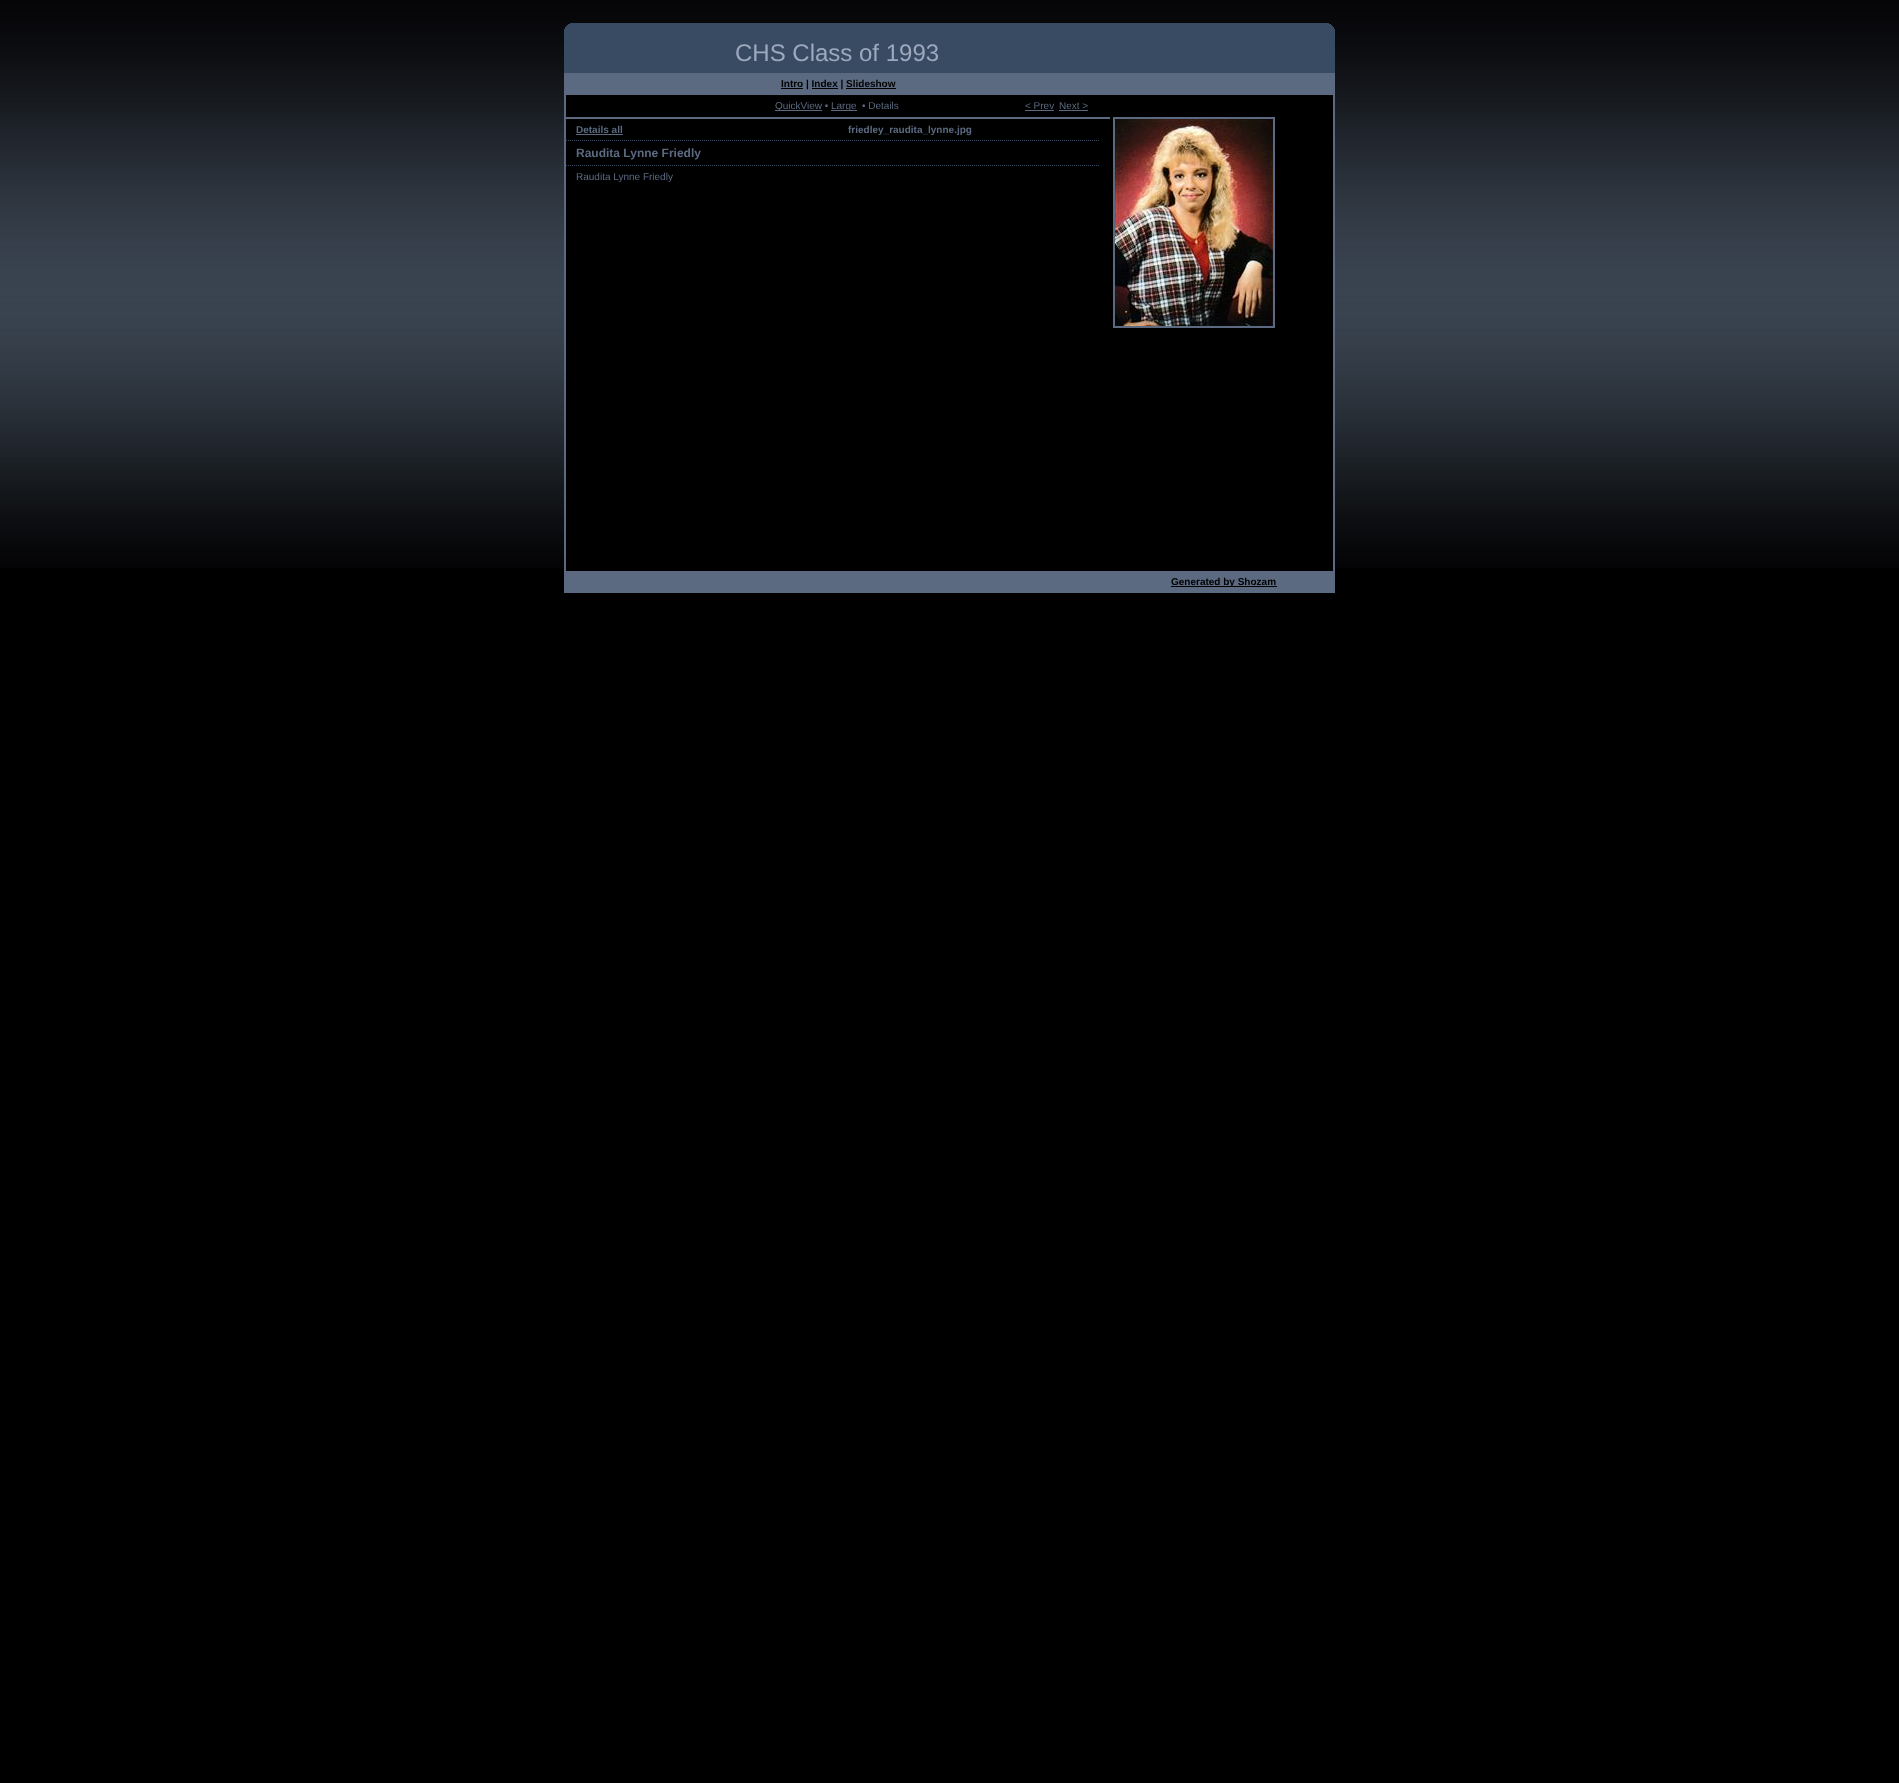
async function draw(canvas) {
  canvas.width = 1899;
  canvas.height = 1783;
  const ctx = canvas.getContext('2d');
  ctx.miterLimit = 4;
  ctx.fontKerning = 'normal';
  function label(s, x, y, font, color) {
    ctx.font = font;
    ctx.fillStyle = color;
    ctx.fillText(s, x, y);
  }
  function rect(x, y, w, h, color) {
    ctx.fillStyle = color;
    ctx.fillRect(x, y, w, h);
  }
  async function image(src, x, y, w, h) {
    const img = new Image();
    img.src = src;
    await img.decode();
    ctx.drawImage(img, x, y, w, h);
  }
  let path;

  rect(0, 0, 1899, 1783, '#000');
  await image('assets/img1.png', 0, 0, 1899, 568);
  await image('assets/img2.png', 564, 23, 771, 50);
  label('CHS Class of 1993', 735, 61, '24px Liberation Sans', '#9ca9bd');
  rect(566, 95, 767, 473, '#000');
  rect(1333, 73, 2, 520, '#5b6a80');
  rect(564, 73, 2, 520, '#5b6a80');
  rect(566, 73, 767, 22, '#5b6a80');
  rect(781, 88, 22, 1, '#000');
  label('Intro | Index | Slideshow', 781, 87, 'bold 10px Liberation Sans', '#000');
  rect(812, 88, 26, 1, '#000');
  rect(846, 88, 50, 1, '#000');
  rect(775, 110, 47, 1, '#5b6a80');
  label('QuickView •', 775, 109, '10px Liberation Sans', '#5b6a80');
  rect(831, 110, 26, 1, '#5b6a80');
  label('Large', 831, 109, '10px Liberation Sans', '#5b6a80');
  label('• Details', 862, 109, '10px Liberation Sans', '#5b6a80');
  label('< Prev', 1025, 109, '10px Liberation Sans', '#5b6a80');
  rect(1025, 110, 29, 1, '#5b6a80');
  label('Next >', 1059, 109, '10px Liberation Sans', '#5b6a80');
  rect(1059, 110, 29, 1, '#5b6a80');
  rect(566, 117, 544, 2, '#5b6a80');
  label('Details all', 576, 133, 'bold 10px Liberation Sans', '#5b6a80');
  rect(576, 134, 47, 1, '#5b6a80');
  label('friedley_raudita_lynne.jpg', 848, 133, 'bold 10px Liberation Sans', '#5b6a80');
  path = new Path2D('M566 140.5H1100');
  ctx.strokeStyle = '#394b63';
  ctx.setLineDash([1, 1]);
  ctx.stroke(path);
  label('Raudita Lynne Friedly', 576, 157, 'bold 12px Liberation Sans', '#5b6a80');
  path = new Path2D('M566 165.5H1100');
  ctx.stroke(path);
  label('Raudita Lynne Friedly', 576, 180, '10px Liberation Sans', '#5b6a80');
  ctx.strokeStyle = '#5b6a80';
  ctx.lineWidth = 2;
  ctx.setLineDash([]);
  ctx.strokeRect(1114, 118, 160, 209);
  await image('assets/img3.png', 1115, 119, 158, 207);
  rect(566, 571, 767, 22, '#5b6a80');
  rect(1171, 586, 106, 1, '#000');
  label('Generated by Shozam', 1171, 585, 'bold 10px Liberation Sans', '#000');
}

draw(document.querySelector('canvas'));
